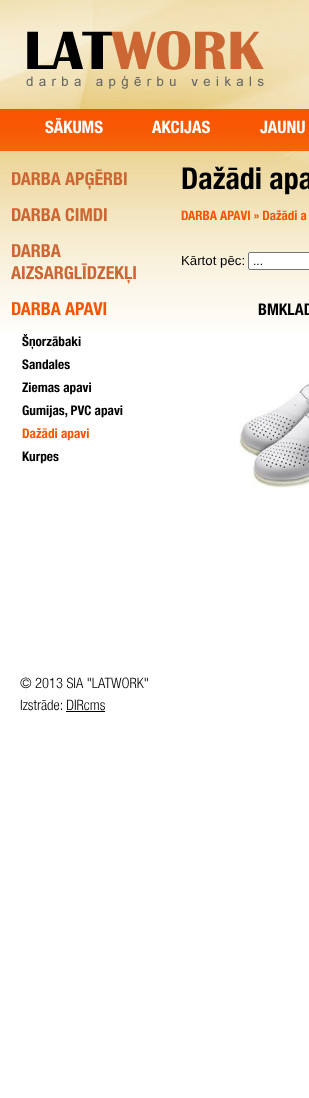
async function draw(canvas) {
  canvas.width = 309;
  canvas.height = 1098;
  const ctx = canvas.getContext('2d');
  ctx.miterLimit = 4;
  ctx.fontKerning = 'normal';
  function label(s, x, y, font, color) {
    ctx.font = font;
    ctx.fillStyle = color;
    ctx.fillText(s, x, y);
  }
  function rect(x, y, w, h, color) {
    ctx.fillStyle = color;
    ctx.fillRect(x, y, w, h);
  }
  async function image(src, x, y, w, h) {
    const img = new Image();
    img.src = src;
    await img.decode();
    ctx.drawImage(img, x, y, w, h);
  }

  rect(0, 0, 309, 1098, '#fff');
  await image('assets/img1.png', 0, 0, 309, 332);
  await image('assets/img2.png', 0, 31, 309, 120);
  label('SĀKUMS', 45, 133, 'bold 17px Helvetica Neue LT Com', '#fff');
  label('AKCIJAS', 152, 133, 'bold 17px Helvetica Neue LT Com', '#fff');
  label('JAUNU', 260, 133, 'bold 17px Helvetica Neue LT Com', '#fff');
  label('DARBA APĢĒRBI', 11, 185, 'bold 18px Helvetica Neue LT Com', '#c63');
  label('DARBA CIMDI', 11, 221, 'bold 18px Helvetica Neue LT Com', '#c63');
  label('DARBA', 11, 257, 'bold 18px Helvetica Neue LT Com', '#c63');
  label('AIZSARGLĪDZEKĻI', 11, 279, 'bold 18px Helvetica Neue LT Com', '#c63');
  label('DARBA APAVI', 11, 315, 'bold 18px Helvetica Neue LT Com', '#f95402');
  label('Šņorzābaki', 22, 346, 'bold 13.25px Helvetica Neue LT Com', '#000');
  label('Sandales', 22, 369, 'bold 13.25px Helvetica Neue LT Com', '#000');
  label('Ziemas apavi', 22, 392, 'bold 13.25px Helvetica Neue LT Com', '#000');
  label('Gumijas, PVC apavi', 22, 415, 'bold 13.25px Helvetica Neue LT Com', '#000');
  label('Dažādi apavi', 22, 438, 'bold 13.25px Helvetica Neue LT Com', '#f95402');
  label('Kurpes', 22, 461, 'bold 13.25px Helvetica Neue LT Com', '#000');
  label('Dažādi apa', 181, 189, 'bold 30px Helvetica Neue LT Com', '#000');
  label('DARBA APAVI » Dažādi a', 181, 220, 'bold 13px Helvetica Neue LT Com', '#f95402');
  label('Kārtot pēc:', 181, 265, '13.25px Liberation Sans', '#000');
  ctx.fillStyle = '#fff';
  ctx.beginPath();
  ctx.roundRect(248.5, 252.5, 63, 17, 1.5);
  ctx.fill();
  ctx.strokeStyle = '#767676';
  ctx.stroke();
  label('...', 253, 265, '12px Liberation Sans', '#000');
  label('BMKLAD', 258, 315, 'bold 16px Helvetica Neue LT Com', '#000');
  await image('assets/img3.png', 239, 382, 70, 106);
  label('© 2013 SIA "LATWORK"', 20, 688, '300 14.5px Helvetica Neue LT Com', '#000');
  label('Izstrāde: DIRcms', 20, 710, '300 14.5px Helvetica Neue LT Com', '#000');
  rect(66, 711, 39, 1, '#000');
}

draw(document.querySelector('canvas'));
